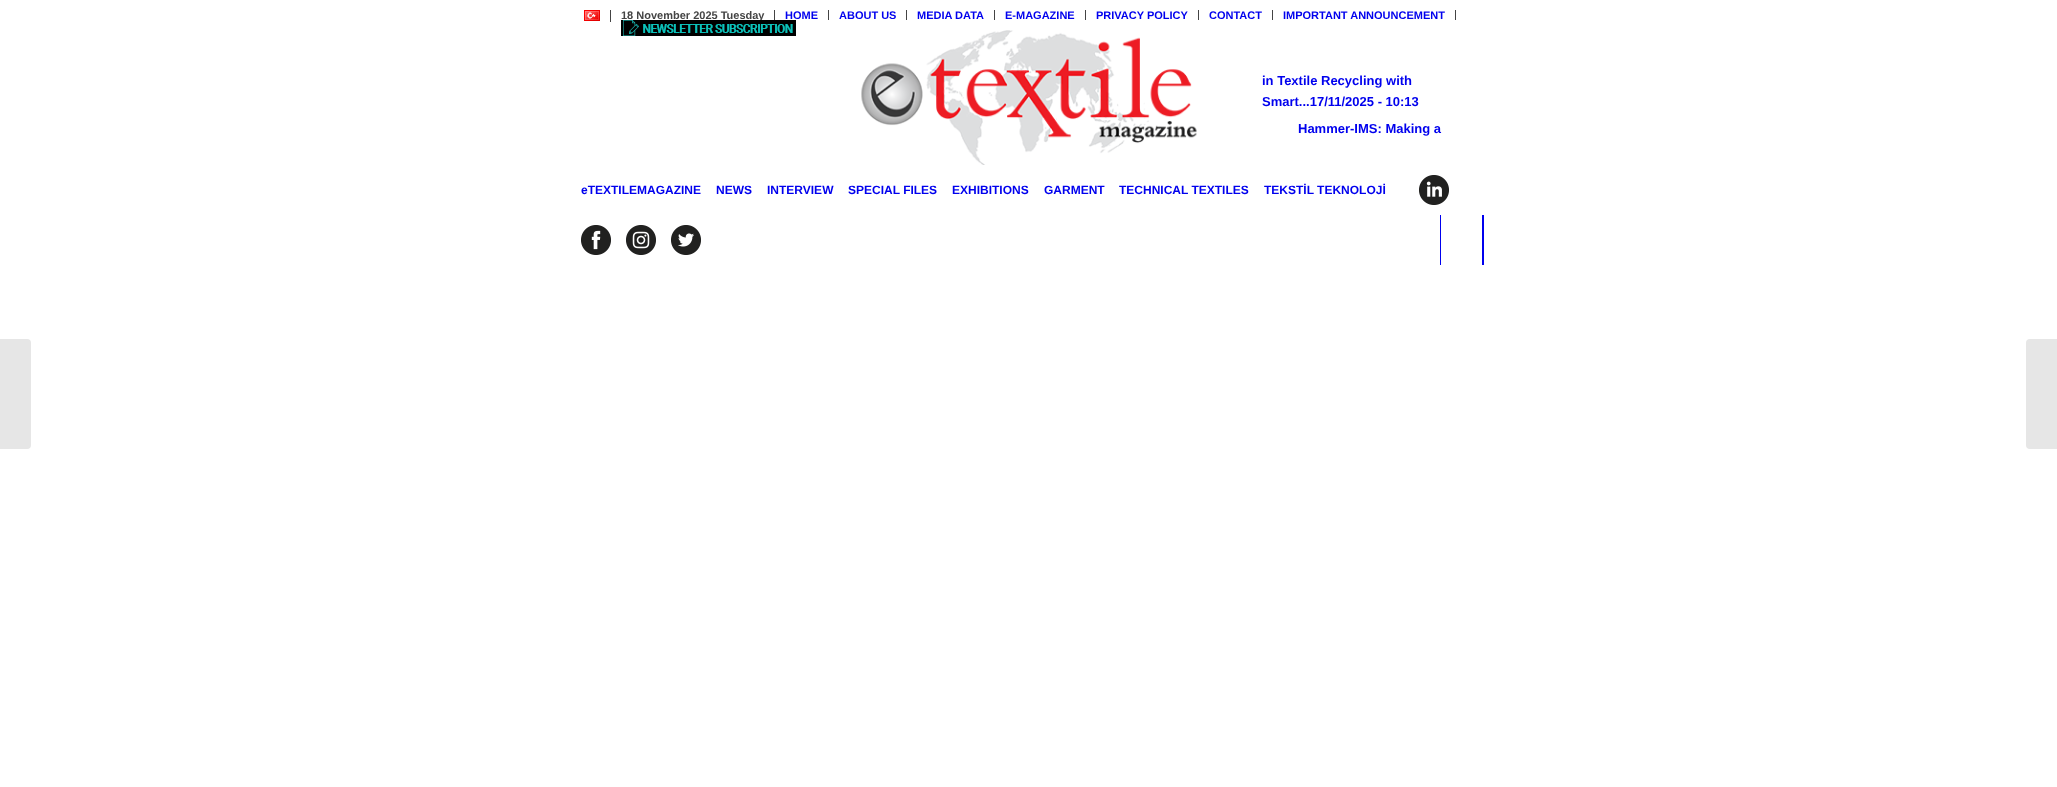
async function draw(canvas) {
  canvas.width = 2057;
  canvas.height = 787;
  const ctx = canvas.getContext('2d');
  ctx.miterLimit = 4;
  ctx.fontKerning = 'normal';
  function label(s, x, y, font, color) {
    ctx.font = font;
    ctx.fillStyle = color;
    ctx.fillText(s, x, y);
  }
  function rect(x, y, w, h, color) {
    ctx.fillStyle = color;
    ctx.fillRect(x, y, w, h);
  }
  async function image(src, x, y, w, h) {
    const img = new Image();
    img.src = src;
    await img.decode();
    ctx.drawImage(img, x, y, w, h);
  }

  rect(0, 0, 2057, 787, '#fff');
  rect(610, 10, 1, 12, '#444');
  await image('assets/img1.png', 584, 10, 16, 11);
  rect(774, 10, 1, 10, '#444');
  label('18 November 2025 Tuesday', 621, 19, 'bold 11px Liberation Sans', '#444');
  rect(828, 10, 1, 10, '#444');
  label('HOME', 785, 19, 'bold 11px Liberation Sans', '#00e');
  rect(906, 10, 1, 10, '#444');
  label('ABOUT US', 839, 19, 'bold 11px Liberation Sans', '#00e');
  rect(994, 10, 1, 10, '#444');
  label('MEDIA DATA', 917, 19, 'bold 11px Liberation Sans', '#00e');
  rect(1085, 10, 1, 10, '#444');
  label('E-MAGAZINE', 1005, 19, 'bold 11px Liberation Sans', '#00e');
  rect(1198, 10, 1, 10, '#444');
  label('PRIVACY POLICY', 1096, 19, 'bold 11px Liberation Sans', '#00e');
  rect(1272, 10, 1, 10, '#444');
  label('CONTACT', 1209, 19, 'bold 11px Liberation Sans', '#00e');
  rect(1455, 10, 1, 10, '#444');
  label('IMPORTANT ANNOUNCEMENT', 1283, 19, 'bold 11px Liberation Sans', '#00e');
  await image('assets/img2.png', 621, 20, 175, 16);
  await image('assets/img3.png', 861, 30, 336, 135);
  label('eTEXTILEMAGAZINE', 581, 194, 'bold 12px Liberation Sans', '#00e');
  label('NEWS', 716, 194, 'bold 12px Liberation Sans', '#00e');
  label('INTERVIEW', 767, 194, 'bold 12px Liberation Sans', '#00e');
  label('SPECIAL FILES', 848, 194, 'bold 12px Liberation Sans', '#00e');
  label('EXHIBITIONS', 952, 194, 'bold 12px Liberation Sans', '#00e');
  label('GARMENT', 1044, 194, 'bold 12px Liberation Sans', '#00e');
  label('TECHNICAL TEXTILES', 1119, 194, 'bold 12px Liberation Sans', '#00e');
  label('TEKSTİL TEKNOLOJİ', 1264, 194, 'bold 12px Liberation Sans', '#00e');
  await image('assets/img4.png', 1419, 175, 30, 30);
  await image('assets/img5.png', 581, 225, 30, 30);
  await image('assets/img6.png', 626, 225, 30, 30);
  await image('assets/img7.png', 671, 225, 30, 30);
  rect(1482, 215, 2, 50, '#00e');
  rect(1440, 215, 1, 50, '#00e');
  label('in Textile Recycling with', 1262, 85, 'bold 13px Liberation Sans', '#00e');
  label('Smart...17/11/2025 - 10:13', 1262, 106, 'bold 13px Liberation Sans', '#00e');
  label('Hammer-IMS: Making a', 1298, 133, 'bold 13px Liberation Sans', '#00e');
  ctx.fillStyle = '#e6e6e6';
  ctx.beginPath();
  ctx.roundRect(0, 339, 31, 110, [0, 4, 4, 0]);
  ctx.fill();
  ctx.beginPath();
  ctx.roundRect(2026, 339, 31, 110, [4, 0, 0, 4]);
  ctx.fill();
}

draw(document.querySelector('canvas'));
